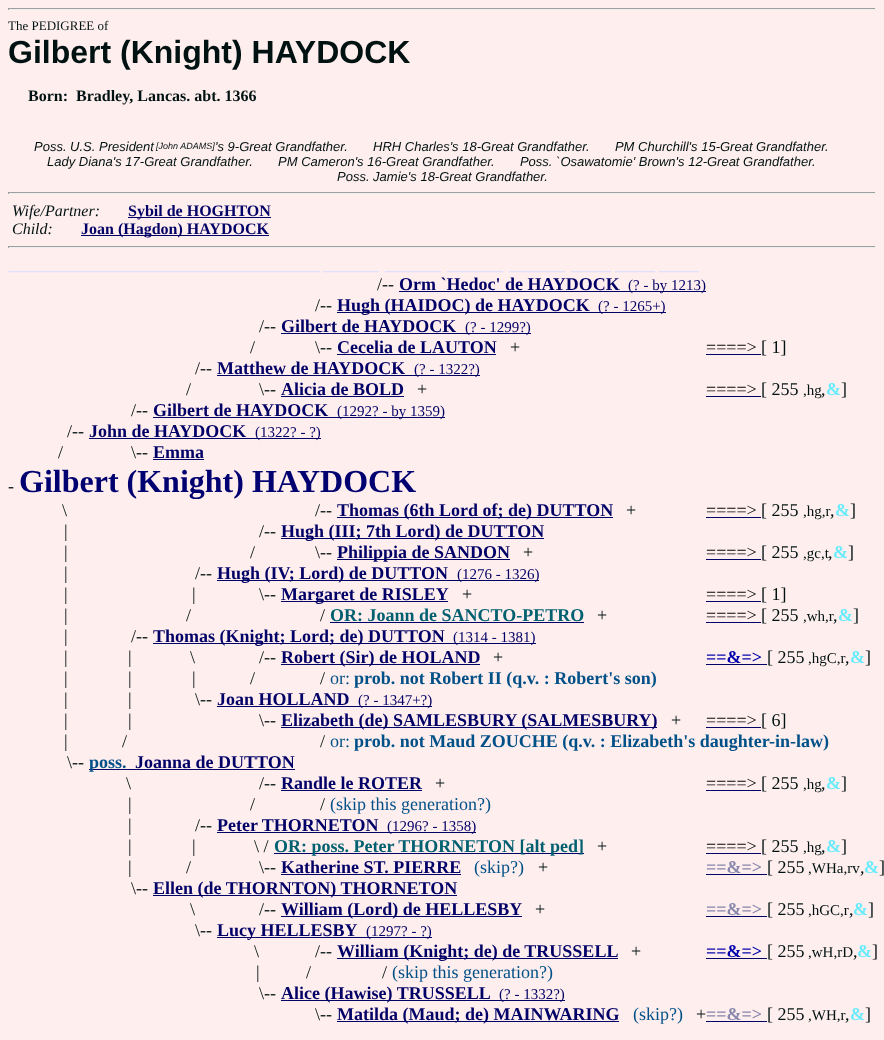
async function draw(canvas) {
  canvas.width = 884;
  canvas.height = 1040;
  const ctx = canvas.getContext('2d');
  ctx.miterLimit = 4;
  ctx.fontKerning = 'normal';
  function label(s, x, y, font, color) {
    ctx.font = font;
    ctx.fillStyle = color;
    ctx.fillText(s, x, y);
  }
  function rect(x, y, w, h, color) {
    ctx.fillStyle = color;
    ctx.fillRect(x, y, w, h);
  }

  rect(0, 0, 884, 1040, '#fee');
  rect(8, 8, 868, 1, '#9f9f9f');
  rect(875, 8, 1, 2, '#eee');
  rect(8, 9, 868, 1, '#eee');
  rect(8, 8, 1, 2, '#9f9f9f');
  label('The PEDIGREE of', 8, 30, '13px Liberation Serif', '#011');
  label('Gilbert (Knight) HAYDOCK', 8, 63, 'bold 32px Liberation Sans', '#011');
  label('Born:', 28, 101, 'bold 16px Liberation Serif', '#011');
  label('Bradley, Lancas. abt. 1366', 76, 101, 'bold 16px Liberation Serif', '#011');
  label('Poss. U.S. President', 34, 151, 'italic 13px Liberation Sans', '#011');
  label('[John ADAMS]', 156, 149, 'italic 9px Liberation Sans', '#011');
  label('\'s 9-Great Grandfather.       HRH Charles\'s 18-Great Grandfather.       PM Churchill\'s 15-Great Grandfather.', 215, 151, 'italic 13px Liberation Sans', '#011');
  label('Lady Diana\'s 17-Great Grandfather.       PM Cameron\'s 16-Great Grandfather.       Poss. `Osawatomie\' Brown\'s 12-Great Grandfather.', 47, 166, 'italic 13px Liberation Sans', '#011');
  label('Poss. Jamie\'s 18-Great Grandfather.', 337, 181, 'italic 13px Liberation Sans', '#011');
  rect(8, 192, 868, 1, '#9f9f9f');
  rect(875, 192, 1, 2, '#eee');
  rect(8, 193, 868, 1, '#eee');
  rect(8, 192, 1, 2, '#9f9f9f');
  label('Wife/Partner:', 12, 216, 'italic 16px Liberation Serif', '#011');
  rect(128, 217, 143, 1, '#006');
  label('Sybil de HOGHTON', 128, 216, 'bold 16px Liberation Serif', '#006');
  label('Child:', 12, 234, 'italic 16px Liberation Serif', '#011');
  rect(81, 235, 188, 1, '#006');
  label('Joan (Hagdon) HAYDOCK', 81, 234, 'bold 16px Liberation Serif', '#006');
  rect(8, 246, 868, 1, '#9f9f9f');
  rect(875, 246, 1, 2, '#eee');
  rect(8, 247, 868, 1, '#eee');
  rect(8, 246, 1, 2, '#9f9f9f');
  label('_______________________________________', 8, 270, 'bold 16px Liberation Serif', '#ddf');
  label('_______', 323, 270, 'bold 16px Liberation Serif', '#ddf');
  label('_______', 385, 270, 'bold 16px Liberation Serif', '#ddf');
  label('_______', 447, 270, 'bold 16px Liberation Serif', '#ddf');
  label('_______', 509, 270, 'bold 16px Liberation Serif', '#ddf');
  label('_____', 571, 270, 'bold 16px Liberation Serif', '#ddf');
  label('_____', 615, 270, 'bold 16px Liberation Serif', '#ddf');
  label('_____', 659, 270, 'bold 16px Liberation Serif', '#ddf');
  label('/--', 377, 290, '18px Liberation Serif', '#011');
  label('Orm `Hedoc\' de HAYDOCK', 399, 290, 'bold 18px Liberation Serif', '#006');
  rect(399, 291, 307, 1, '#006');
  label('(? - by 1213)', 628, 290, '15px Liberation Serif', '#006');
  label('/--', 315, 311, '18px Liberation Serif', '#011');
  rect(337, 312, 252, 1, '#006');
  label('Hugh (HAIDOC) de HAYDOCK', 337, 311, 'bold 18px Liberation Serif', '#006');
  rect(589, 312, 77, 1, '#006');
  label('(? - 1265+)', 598, 311, '15px Liberation Serif', '#006');
  label('/--', 259, 332, '18px Liberation Serif', '#011');
  label('Gilbert de HAYDOCK', 281, 332, 'bold 18px Liberation Serif', '#006');
  rect(281, 333, 250, 1, '#006');
  label('(? - 1299?)', 465, 332, '15px Liberation Serif', '#006');
  label('/', 250, 353, '18px Liberation Serif', '#011');
  label('\\--', 315, 353, '18px Liberation Serif', '#011');
  label('Cecelia de LAUTON', 337, 353, 'bold 18px Liberation Serif', '#006');
  rect(337, 354, 159, 1, '#006');
  label('+', 510, 353, '18px Liberation Serif', '#011');
  label('====>', 706, 353, '18px Liberation Serif', '#000');
  rect(706, 354, 55, 1, '#006');
  label('[ 1]', 761, 353, '18px Liberation Serif', '#011');
  label('/--', 195, 374, '18px Liberation Serif', '#011');
  label('Matthew de HAYDOCK', 217, 374, 'bold 18px Liberation Serif', '#006');
  rect(217, 375, 263, 1, '#006');
  label('(? - 1322?)', 414, 374, '15px Liberation Serif', '#006');
  label('/', 186, 395, '18px Liberation Serif', '#011');
  label('\\--', 259, 395, '18px Liberation Serif', '#011');
  label('Alicia de BOLD', 281, 395, 'bold 18px Liberation Serif', '#006');
  rect(281, 396, 123, 1, '#006');
  label('+', 417, 395, '18px Liberation Serif', '#011');
  label('====>', 706, 395, '18px Liberation Serif', '#000');
  rect(706, 396, 55, 1, '#006');
  label('[ 255', 761, 395, '18px Liberation Serif', '#011');
  label(',hg', 803, 395, '15px Liberation Serif', '#011');
  label(',', 821, 395, '18px Liberation Serif', '#011');
  label('&', 826, 395, 'bold 18px Liberation Serif', '#68ecfc');
  label(']', 841, 395, '18px Liberation Serif', '#011');
  label('/--', 131, 416, '18px Liberation Serif', '#011');
  label('Gilbert de HAYDOCK', 153, 416, 'bold 18px Liberation Serif', '#006');
  rect(153, 417, 292, 1, '#006');
  label('(1292? - by 1359)', 337, 416, '15px Liberation Serif', '#006');
  label('/--', 67, 437, '18px Liberation Serif', '#011');
  label('John de HAYDOCK', 89, 437, 'bold 18px Liberation Serif', '#006');
  rect(89, 438, 232, 1, '#006');
  label('(1322? - ?)', 255, 437, '15px Liberation Serif', '#006');
  label('/', 58, 458, '18px Liberation Serif', '#011');
  label('\\--', 131, 458, '18px Liberation Serif', '#011');
  label('Emma', 153, 458, 'bold 18px Liberation Serif', '#006');
  rect(153, 459, 51, 1, '#006');
  label('-', 8, 492, '18px Liberation Serif', '#011');
  label('Gilbert (Knight) HAYDOCK', 19, 492, 'bold 32px Liberation Serif', '#000070');
  label('\\', 62, 516, '18px Liberation Serif', '#011');
  label('/--', 315, 516, '18px Liberation Serif', '#011');
  rect(337, 517, 276, 1, '#006');
  label('Thomas (6th Lord of; de) DUTTON', 337, 516, 'bold 18px Liberation Serif', '#006');
  label('+', 626, 516, '18px Liberation Serif', '#011');
  label('====>', 706, 516, '18px Liberation Serif', '#000');
  rect(706, 517, 55, 1, '#006');
  label('[ 255', 761, 516, '18px Liberation Serif', '#011');
  label(',hg,r', 803, 516, '15px Liberation Serif', '#011');
  label(',', 830, 516, '18px Liberation Serif', '#011');
  label('&', 835, 516, 'bold 18px Liberation Serif', '#68ecfc');
  label(']', 850, 516, '18px Liberation Serif', '#011');
  label('|', 64, 537, '18px Liberation Serif', '#011');
  label('/--', 259, 537, '18px Liberation Serif', '#011');
  rect(281, 538, 263, 1, '#006');
  label('Hugh (III; 7th Lord) de DUTTON', 281, 537, 'bold 18px Liberation Serif', '#006');
  label('|', 64, 558, '18px Liberation Serif', '#011');
  label('/', 250, 558, '18px Liberation Serif', '#011');
  label('\\--', 315, 558, '18px Liberation Serif', '#011');
  rect(337, 559, 173, 1, '#006');
  label('Philippia de SANDON', 337, 558, 'bold 18px Liberation Serif', '#006');
  label('+', 523, 558, '18px Liberation Serif', '#011');
  label('====>', 706, 558, '18px Liberation Serif', '#000');
  rect(706, 559, 55, 1, '#006');
  label('[ 255', 761, 558, '18px Liberation Serif', '#011');
  label(',gc,t', 803, 558, '15px Liberation Serif', '#011');
  label(',', 828, 558, '18px Liberation Serif', '#011');
  label('&', 833, 558, 'bold 18px Liberation Serif', '#68ecfc');
  label(']', 848, 558, '18px Liberation Serif', '#011');
  label('|', 64, 579, '18px Liberation Serif', '#011');
  label('/--', 195, 579, '18px Liberation Serif', '#011');
  rect(217, 580, 322, 1, '#006');
  label('Hugh (IV; Lord) de DUTTON', 217, 579, 'bold 18px Liberation Serif', '#006');
  label('(1276 - 1326)', 457, 579, '15px Liberation Serif', '#006');
  label('|', 64, 600, '18px Liberation Serif', '#011');
  label('|', 192, 600, '18px Liberation Serif', '#011');
  label('\\--', 259, 600, '18px Liberation Serif', '#011');
  rect(281, 601, 167, 1, '#006');
  label('Margaret de RISLEY', 281, 600, 'bold 18px Liberation Serif', '#006');
  label('+', 462, 600, '18px Liberation Serif', '#011');
  label('====>', 706, 600, '18px Liberation Serif', '#000');
  rect(706, 601, 55, 1, '#006');
  label('[ 1]', 761, 600, '18px Liberation Serif', '#011');
  label('|', 64, 621, '18px Liberation Serif', '#011');
  label('/', 186, 621, '18px Liberation Serif', '#011');
  label('/', 320, 621, '18px Liberation Serif', '#011');
  label('OR: Joann de SANCTO-PETRO', 330, 621, 'bold 18px Liberation Serif', '#006070');
  rect(330, 622, 254, 1, '#006');
  label('+', 597, 621, '18px Liberation Serif', '#011');
  label('====>', 706, 621, '18px Liberation Serif', '#000');
  rect(706, 622, 55, 1, '#006');
  label('[ 255', 761, 621, '18px Liberation Serif', '#011');
  label(',wh,r', 803, 621, '15px Liberation Serif', '#011');
  label(',', 833, 621, '18px Liberation Serif', '#011');
  label('&', 838, 621, 'bold 18px Liberation Serif', '#68ecfc');
  label(']', 853, 621, '18px Liberation Serif', '#011');
  label('|', 64, 642, '18px Liberation Serif', '#011');
  label('/--', 131, 642, '18px Liberation Serif', '#011');
  rect(153, 643, 383, 1, '#006');
  label('Thomas (Knight; Lord; de) DUTTON', 153, 642, 'bold 18px Liberation Serif', '#006');
  label('(1314 - 1381)', 453, 642, '15px Liberation Serif', '#006');
  label('|', 64, 663, '18px Liberation Serif', '#011');
  label('|', 128, 663, '18px Liberation Serif', '#011');
  label('\\', 190, 663, '18px Liberation Serif', '#011');
  label('/--', 259, 663, '18px Liberation Serif', '#011');
  rect(281, 664, 199, 1, '#006');
  label('Robert (Sir) de HOLAND', 281, 663, 'bold 18px Liberation Serif', '#006');
  label('+', 493, 663, '18px Liberation Serif', '#011');
  label('==&=>', 706, 663, 'bold 18px Liberation Serif', '#0000ac');
  rect(706, 664, 61, 1, '#006');
  label('[ 255', 767, 663, '18px Liberation Serif', '#011');
  label(',hgC,r', 808, 663, '15px Liberation Serif', '#011');
  label(',', 845, 663, '18px Liberation Serif', '#011');
  label('&', 850, 663, 'bold 18px Liberation Serif', '#68ecfc');
  label(']', 865, 663, '18px Liberation Serif', '#011');
  label('|', 64, 684, '18px Liberation Serif', '#011');
  label('|', 128, 684, '18px Liberation Serif', '#011');
  label('|', 192, 684, '18px Liberation Serif', '#011');
  label('/', 250, 684, '18px Liberation Serif', '#011');
  label('/', 320, 684, '18px Liberation Serif', '#011');
  label('or:', 330, 684, '18px Liberation Serif', '#005088');
  label('prob. not Robert II (q.v. : Robert\'s son)', 354, 684, 'bold 18px Liberation Serif', '#005088');
  label('|', 64, 705, '18px Liberation Serif', '#011');
  label('|', 128, 705, '18px Liberation Serif', '#011');
  label('\\--', 195, 705, '18px Liberation Serif', '#011');
  label('Joan HOLLAND', 217, 705, 'bold 18px Liberation Serif', '#006');
  rect(217, 706, 215, 1, '#006');
  label('(? - 1347+?)', 358, 705, '15px Liberation Serif', '#006');
  label('|', 64, 726, '18px Liberation Serif', '#011');
  label('|', 128, 726, '18px Liberation Serif', '#011');
  label('\\--', 259, 726, '18px Liberation Serif', '#011');
  rect(281, 727, 376, 1, '#006');
  label('Elizabeth (de) SAMLESBURY (SALMESBURY)', 281, 726, 'bold 18px Liberation Serif', '#006');
  label('+', 671, 726, '18px Liberation Serif', '#011');
  label('====>', 706, 726, '18px Liberation Serif', '#000');
  rect(706, 727, 55, 1, '#006');
  label('[ 6]', 761, 726, '18px Liberation Serif', '#011');
  label('|', 64, 747, '18px Liberation Serif', '#011');
  label('/', 122, 747, '18px Liberation Serif', '#011');
  label('/', 320, 747, '18px Liberation Serif', '#011');
  label('or:', 330, 747, '18px Liberation Serif', '#005088');
  label('prob. not Maud ZOUCHE (q.v. : Elizabeth\'s daughter-in-law)', 354, 747, 'bold 18px Liberation Serif', '#005088');
  label('\\--', 67, 768, '18px Liberation Serif', '#011');
  rect(89, 769, 206, 1, '#006');
  label('poss.', 89, 768, 'bold 18px Liberation Serif', '#005088');
  label('Joanna de DUTTON', 135, 768, 'bold 18px Liberation Serif', '#006');
  label('\\', 126, 789, '18px Liberation Serif', '#011');
  label('/--', 259, 789, '18px Liberation Serif', '#011');
  label('Randle le ROTER', 281, 789, 'bold 18px Liberation Serif', '#006');
  rect(281, 790, 141, 1, '#006');
  label('+', 435, 789, '18px Liberation Serif', '#011');
  label('====>', 706, 789, '18px Liberation Serif', '#000');
  rect(706, 790, 55, 1, '#006');
  label('[ 255', 761, 789, '18px Liberation Serif', '#011');
  label(',hg', 803, 789, '15px Liberation Serif', '#011');
  label(',', 821, 789, '18px Liberation Serif', '#011');
  label('&', 826, 789, 'bold 18px Liberation Serif', '#68ecfc');
  label(']', 841, 789, '18px Liberation Serif', '#011');
  label('|', 128, 810, '18px Liberation Serif', '#011');
  label('/', 250, 810, '18px Liberation Serif', '#011');
  label('/', 320, 810, '18px Liberation Serif', '#011');
  label('(skip this generation?)', 330, 810, '18px Liberation Serif', '#005088');
  label('|', 128, 831, '18px Liberation Serif', '#011');
  label('/--', 195, 831, '18px Liberation Serif', '#011');
  label('Peter THORNETON', 217, 831, 'bold 18px Liberation Serif', '#006');
  rect(217, 832, 259, 1, '#006');
  label('(1296? - 1358)', 387, 831, '15px Liberation Serif', '#006');
  label('|', 128, 852, '18px Liberation Serif', '#011');
  label('|', 192, 852, '18px Liberation Serif', '#011');
  label('\\ /', 254, 852, '18px Liberation Serif', '#011');
  rect(274, 853, 310, 1, '#006');
  label('OR: poss. Peter THORNETON [alt ped]', 274, 852, 'bold 18px Liberation Serif', '#006070');
  label('+', 597, 852, '18px Liberation Serif', '#011');
  label('====>', 706, 852, '18px Liberation Serif', '#000');
  rect(706, 853, 55, 1, '#006');
  label('[ 255', 761, 852, '18px Liberation Serif', '#011');
  label(',hg', 803, 852, '15px Liberation Serif', '#011');
  label(',', 821, 852, '18px Liberation Serif', '#011');
  label('&', 826, 852, 'bold 18px Liberation Serif', '#68ecfc');
  label(']', 841, 852, '18px Liberation Serif', '#011');
  label('|', 128, 873, '18px Liberation Serif', '#011');
  label('/', 186, 873, '18px Liberation Serif', '#011');
  label('\\--', 259, 873, '18px Liberation Serif', '#011');
  label('Katherine ST. PIERRE', 281, 873, 'bold 18px Liberation Serif', '#006');
  rect(281, 874, 180, 1, '#006');
  label('(skip?)', 474, 873, '18px Liberation Serif', '#005088');
  label('+', 538, 873, '18px Liberation Serif', '#011');
  label('==&=>', 706, 873, 'bold 18px Liberation Serif', '#8888ac');
  rect(706, 874, 61, 1, '#006');
  label('[ 255', 767, 873, '18px Liberation Serif', '#011');
  label(',WHa,rv', 808, 873, '15px Liberation Serif', '#011');
  label(',', 860, 873, '18px Liberation Serif', '#011');
  label('&', 864, 873, 'bold 18px Liberation Serif', '#68ecfc');
  label(']', 879, 873, '18px Liberation Serif', '#011');
  label('\\--', 131, 894, '18px Liberation Serif', '#011');
  rect(153, 895, 304, 1, '#006');
  label('Ellen (de THORNTON) THORNETON', 153, 894, 'bold 18px Liberation Serif', '#006');
  label('\\', 190, 915, '18px Liberation Serif', '#011');
  label('/--', 259, 915, '18px Liberation Serif', '#011');
  rect(281, 916, 241, 1, '#006');
  label('William (Lord) de HELLESBY', 281, 915, 'bold 18px Liberation Serif', '#006');
  label('+', 535, 915, '18px Liberation Serif', '#011');
  label('==&=>', 706, 915, 'bold 18px Liberation Serif', '#8888ac');
  rect(706, 916, 61, 1, '#006');
  label('[ 255', 767, 915, '18px Liberation Serif', '#011');
  label(',hGC,r', 808, 915, '15px Liberation Serif', '#011');
  label(',', 849, 915, '18px Liberation Serif', '#011');
  label('&', 853, 915, 'bold 18px Liberation Serif', '#68ecfc');
  label(']', 868, 915, '18px Liberation Serif', '#011');
  label('\\--', 195, 936, '18px Liberation Serif', '#011');
  rect(217, 937, 215, 1, '#006');
  label('Lucy HELLESBY', 217, 936, 'bold 18px Liberation Serif', '#006');
  label('(1297? - ?)', 366, 936, '15px Liberation Serif', '#006');
  label('\\', 254, 957, '18px Liberation Serif', '#011');
  label('/--', 315, 957, '18px Liberation Serif', '#011');
  rect(337, 958, 281, 1, '#006');
  label('William (Knight; de) de TRUSSELL', 337, 957, 'bold 18px Liberation Serif', '#006');
  label('+', 631, 957, '18px Liberation Serif', '#011');
  label('==&=>', 706, 957, 'bold 18px Liberation Serif', '#0000ac');
  rect(706, 958, 61, 1, '#006');
  label('[ 255', 767, 957, '18px Liberation Serif', '#011');
  label(',wH,rD', 808, 957, '15px Liberation Serif', '#011');
  label(',', 853, 957, '18px Liberation Serif', '#011');
  label('&', 857, 957, 'bold 18px Liberation Serif', '#68ecfc');
  label(']', 872, 957, '18px Liberation Serif', '#011');
  label('|', 256, 978, '18px Liberation Serif', '#011');
  label('/', 306, 978, '18px Liberation Serif', '#011');
  label('/', 382, 978, '18px Liberation Serif', '#011');
  label('(skip this generation?)', 392, 978, '18px Liberation Serif', '#005088');
  label('\\--', 259, 999, '18px Liberation Serif', '#011');
  rect(281, 1000, 284, 1, '#006');
  label('Alice (Hawise) TRUSSELL', 281, 999, 'bold 18px Liberation Serif', '#006');
  label('(? - 1332?)', 499, 999, '15px Liberation Serif', '#006');
  label('\\--', 315, 1020, '18px Liberation Serif', '#011');
  rect(337, 1021, 282, 1, '#006');
  label('Matilda (Maud; de) MAINWARING', 337, 1020, 'bold 18px Liberation Serif', '#006');
  label('(skip?)', 633, 1020, '18px Liberation Serif', '#005088');
  label('+', 696, 1020, '18px Liberation Serif', '#011');
  label('==&=>', 706, 1020, 'bold 18px Liberation Serif', '#8888ac');
  rect(706, 1021, 61, 1, '#006');
  label('[ 255', 767, 1020, '18px Liberation Serif', '#011');
  label(',WH,r', 808, 1020, '15px Liberation Serif', '#011');
  label(',', 845, 1020, '18px Liberation Serif', '#011');
  label('&', 850, 1020, 'bold 18px Liberation Serif', '#68ecfc');
  label(']', 865, 1020, '18px Liberation Serif', '#011');
}

draw(document.querySelector('canvas'));
